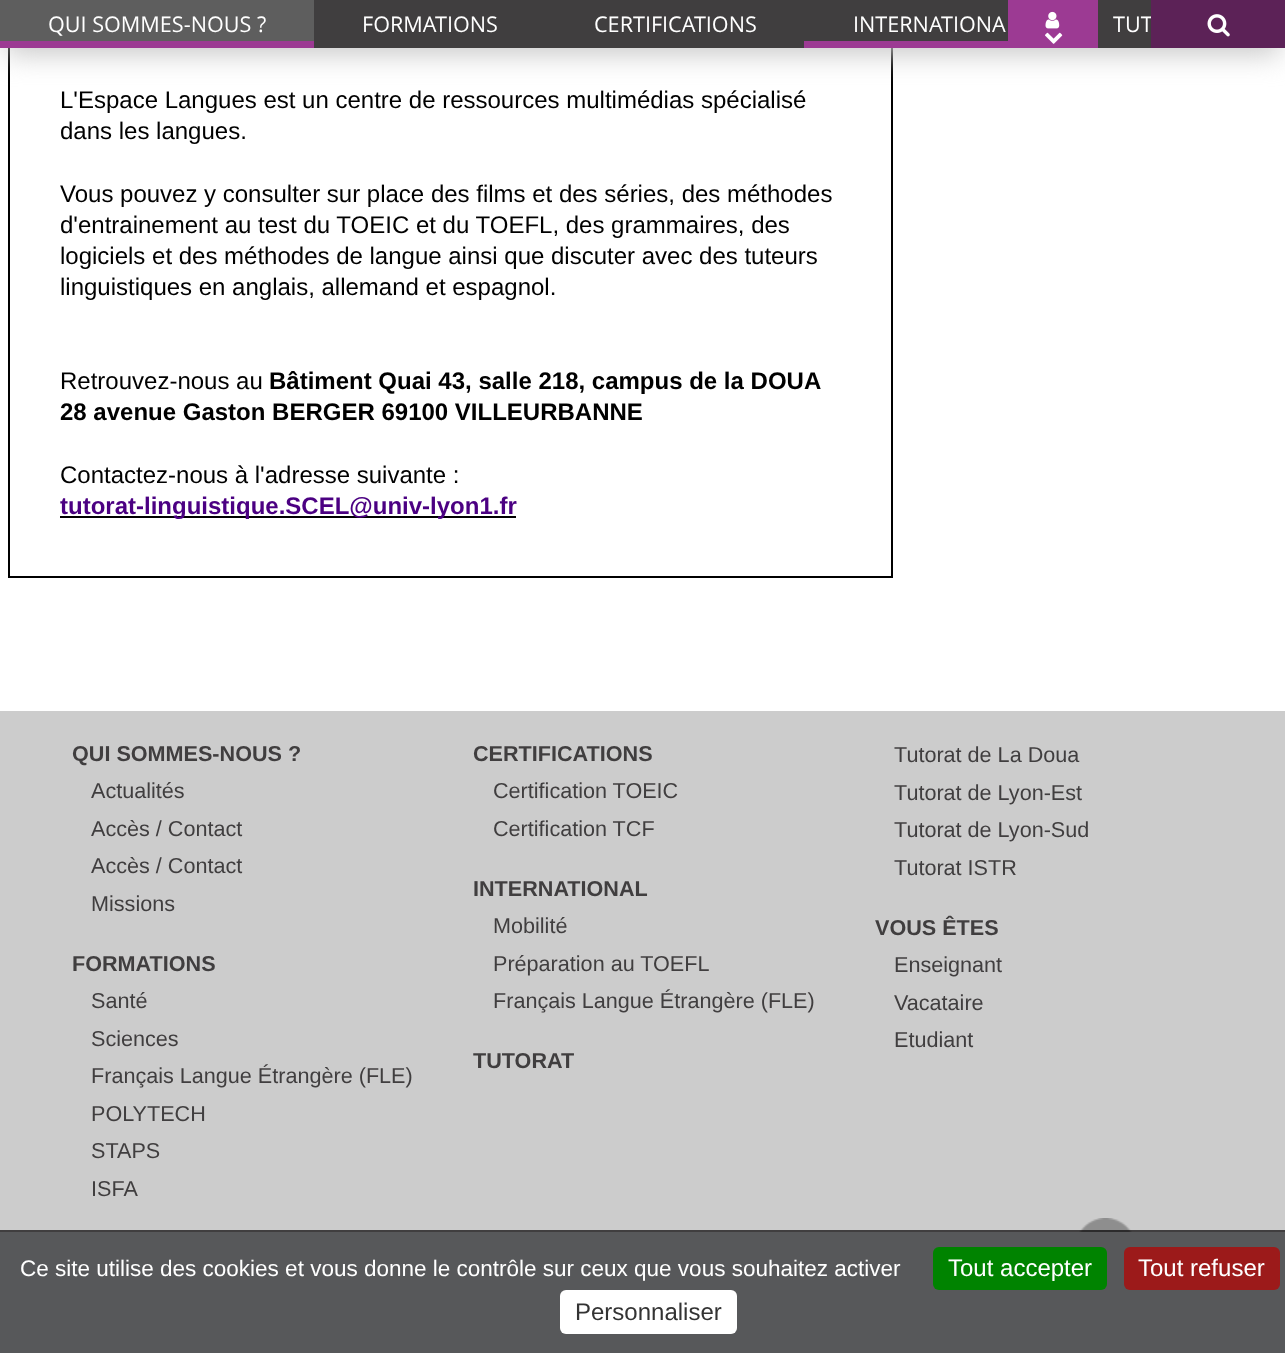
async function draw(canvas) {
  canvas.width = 1285;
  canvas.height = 1353;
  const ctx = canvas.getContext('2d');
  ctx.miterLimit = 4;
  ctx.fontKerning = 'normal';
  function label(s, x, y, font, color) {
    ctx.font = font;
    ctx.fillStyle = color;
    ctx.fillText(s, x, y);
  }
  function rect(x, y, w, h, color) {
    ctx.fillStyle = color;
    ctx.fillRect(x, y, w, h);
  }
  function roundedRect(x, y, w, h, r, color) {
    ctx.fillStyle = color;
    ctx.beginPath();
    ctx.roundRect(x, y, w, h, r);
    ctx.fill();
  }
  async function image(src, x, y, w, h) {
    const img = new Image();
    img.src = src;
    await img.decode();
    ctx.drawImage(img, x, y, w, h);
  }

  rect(0, 0, 1285, 1353, '#fff');
  ctx.strokeStyle = '#000';
  ctx.lineWidth = 2;
  ctx.strokeRect(9, -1, 883, 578);
  ctx.fillStyle = '#c7c7c7';
  ctx.filter = 'blur(14px)';
  ctx.beginPath();
  ctx.rect(6, 18, 1274, 36);
  ctx.fill();
  ctx.filter = 'none';
  rect(314, 0, 837, 48, '#403e3f');
  rect(1008, 0, 90, 48, '#9c3a93');
  await image('assets/img1.png', 1045, 11, 15, 18);
  await image('assets/img2.png', 1045, 32, 18, 12);
  label('TUT', 1113, 32, '21.6px Open Sans', '#fff');
  rect(1151, 0, 134, 48, '#5c2257');
  await image('assets/img3.png', 1207, 14, 23, 23);
  rect(0, 0, 314, 41, '#5e5e5e');
  rect(0, 41, 314, 7, '#9c3a93');
  label('QUI SOMMES-NOUS ?', 48, 32, '21.6px Open Sans', '#fff');
  label('FORMATIONS', 362, 32, '21.6px Open Sans', '#fff');
  label('CERTIFICATIONS', 594, 32, '21.6px Open Sans', '#fff');
  rect(804, 41, 204, 7, '#9c3a93');
  label('INTERNATIONA', 853, 32, '21.6px Open Sans', '#fff');
  label('L\'Espace Langues est un centre de ressources multimédias spécialisé', 60, 108, '24px Liberation Sans', '#000');
  label('dans les langues.', 60, 139, '24px Liberation Sans', '#000');
  label('Vous pouvez y consulter sur place des films et des séries, des méthodes', 60, 202, '24px Liberation Sans', '#000');
  label('d\'entrainement au test du TOEIC et du TOEFL, des grammaires, des', 60, 233, '24px Liberation Sans', '#000');
  label('logiciels et des méthodes de langue ainsi que discuter avec des tuteurs', 60, 264, '24px Liberation Sans', '#000');
  label('linguistiques en anglais, allemand et espagnol.', 60, 295, '24px Liberation Sans', '#000');
  label('Retrouvez-nous au', 60, 389, '24px Liberation Sans', '#000');
  label('Bâtiment Quai 43, salle 218, campus de la DOUA', 269, 389, 'bold 24px Liberation Sans', '#000');
  label('28 avenue Gaston BERGER 69100 VILLEURBANNE', 60, 420, 'bold 24px Liberation Sans', '#000');
  label('Contactez-nous à l\'adresse suivante :', 60, 483, '24px Liberation Sans', '#000');
  rect(60, 516, 456, 2, '#000');
  label('tutorat-linguistique.SCEL@univ-lyon1.fr', 60, 514, 'bold 24px Liberation Sans', '#4b0082');
  rect(0, 711, 1285, 519, '#ccc');
  rect(0, 1230, 1285, 2, '#403e3f');
  label('QUI SOMMES-NOUS ?', 72, 761, 'bold 21.6px Liberation Sans', '#403e3f');
  label('Actualités', 91, 798, '21.6px Liberation Sans', '#403e3f');
  label('Accès / Contact', 91, 836, '21.6px Liberation Sans', '#403e3f');
  label('Accès / Contact', 91, 873, '21.6px Liberation Sans', '#403e3f');
  label('Missions', 91, 911, '21.6px Liberation Sans', '#403e3f');
  label('CERTIFICATIONS', 473, 761, 'bold 21.6px Liberation Sans', '#403e3f');
  label('Certification TOEIC', 493, 798, '21.6px Liberation Sans', '#403e3f');
  label('Certification TCF', 493, 836, '21.6px Liberation Sans', '#403e3f');
  label('Tutorat de La Doua', 894, 762, '21.6px Liberation Sans', '#403e3f');
  label('Tutorat de Lyon-Est', 894, 800, '21.6px Liberation Sans', '#403e3f');
  label('Tutorat de Lyon-Sud', 894, 837, '21.6px Liberation Sans', '#403e3f');
  label('Tutorat ISTR', 894, 875, '21.6px Liberation Sans', '#403e3f');
  label('TUTORAT', 473, 1068, 'bold 21.6px Liberation Sans', '#403e3f');
  label('FORMATIONS', 72, 971, 'bold 21.6px Liberation Sans', '#403e3f');
  label('Santé', 91, 1008, '21.6px Liberation Sans', '#403e3f');
  label('Sciences', 91, 1046, '21.6px Liberation Sans', '#403e3f');
  label('Français Langue Étrangère (FLE)', 91, 1083, '21.6px Liberation Sans', '#403e3f');
  label('POLYTECH', 91, 1121, '21.6px Liberation Sans', '#403e3f');
  label('STAPS', 91, 1158, '21.6px Liberation Sans', '#403e3f');
  label('ISFA', 91, 1196, '21.6px Liberation Sans', '#403e3f');
  label('INTERNATIONAL', 473, 896, 'bold 21.6px Liberation Sans', '#403e3f');
  label('Mobilité', 493, 933, '21.6px Liberation Sans', '#403e3f');
  label('Préparation au TOEFL', 493, 971, '21.6px Liberation Sans', '#403e3f');
  label('Français Langue Étrangère (FLE)', 493, 1008, '21.6px Liberation Sans', '#403e3f');
  label('VOUS ÊTES', 875, 935, 'bold 21.6px Liberation Sans', '#403e3f');
  label('Enseignant', 894, 972, '21.6px Liberation Sans', '#403e3f');
  label('Vacataire', 894, 1010, '21.6px Liberation Sans', '#403e3f');
  label('Etudiant', 894, 1047, '21.6px Liberation Sans', '#403e3f');
  await image('assets/img4.png', 1079, 1218, 53, 14);
  rect(0, 1232, 1285, 121, '#57585a');
  label('Ce site utilise des cookies et vous donne le contrôle sur ceux que vous souhaitez activer', 20, 1276, '22.5px Liberation Sans', '#fff');
  roundedRect(933, 1247, 174, 43, 6, '#008300');
  label('Tout accepter', 948, 1276, '24px Liberation Sans', '#fff');
  roundedRect(1124, 1247, 156, 43, 6, '#9c1a1a');
  label('Tout refuser', 1138, 1276, '24px Liberation Sans', '#fff');
  roundedRect(560, 1290, 177, 44, 6, '#fff');
  label('Personnaliser', 575, 1320, '24px Liberation Sans', '#333');
}

draw(document.querySelector('canvas'));
